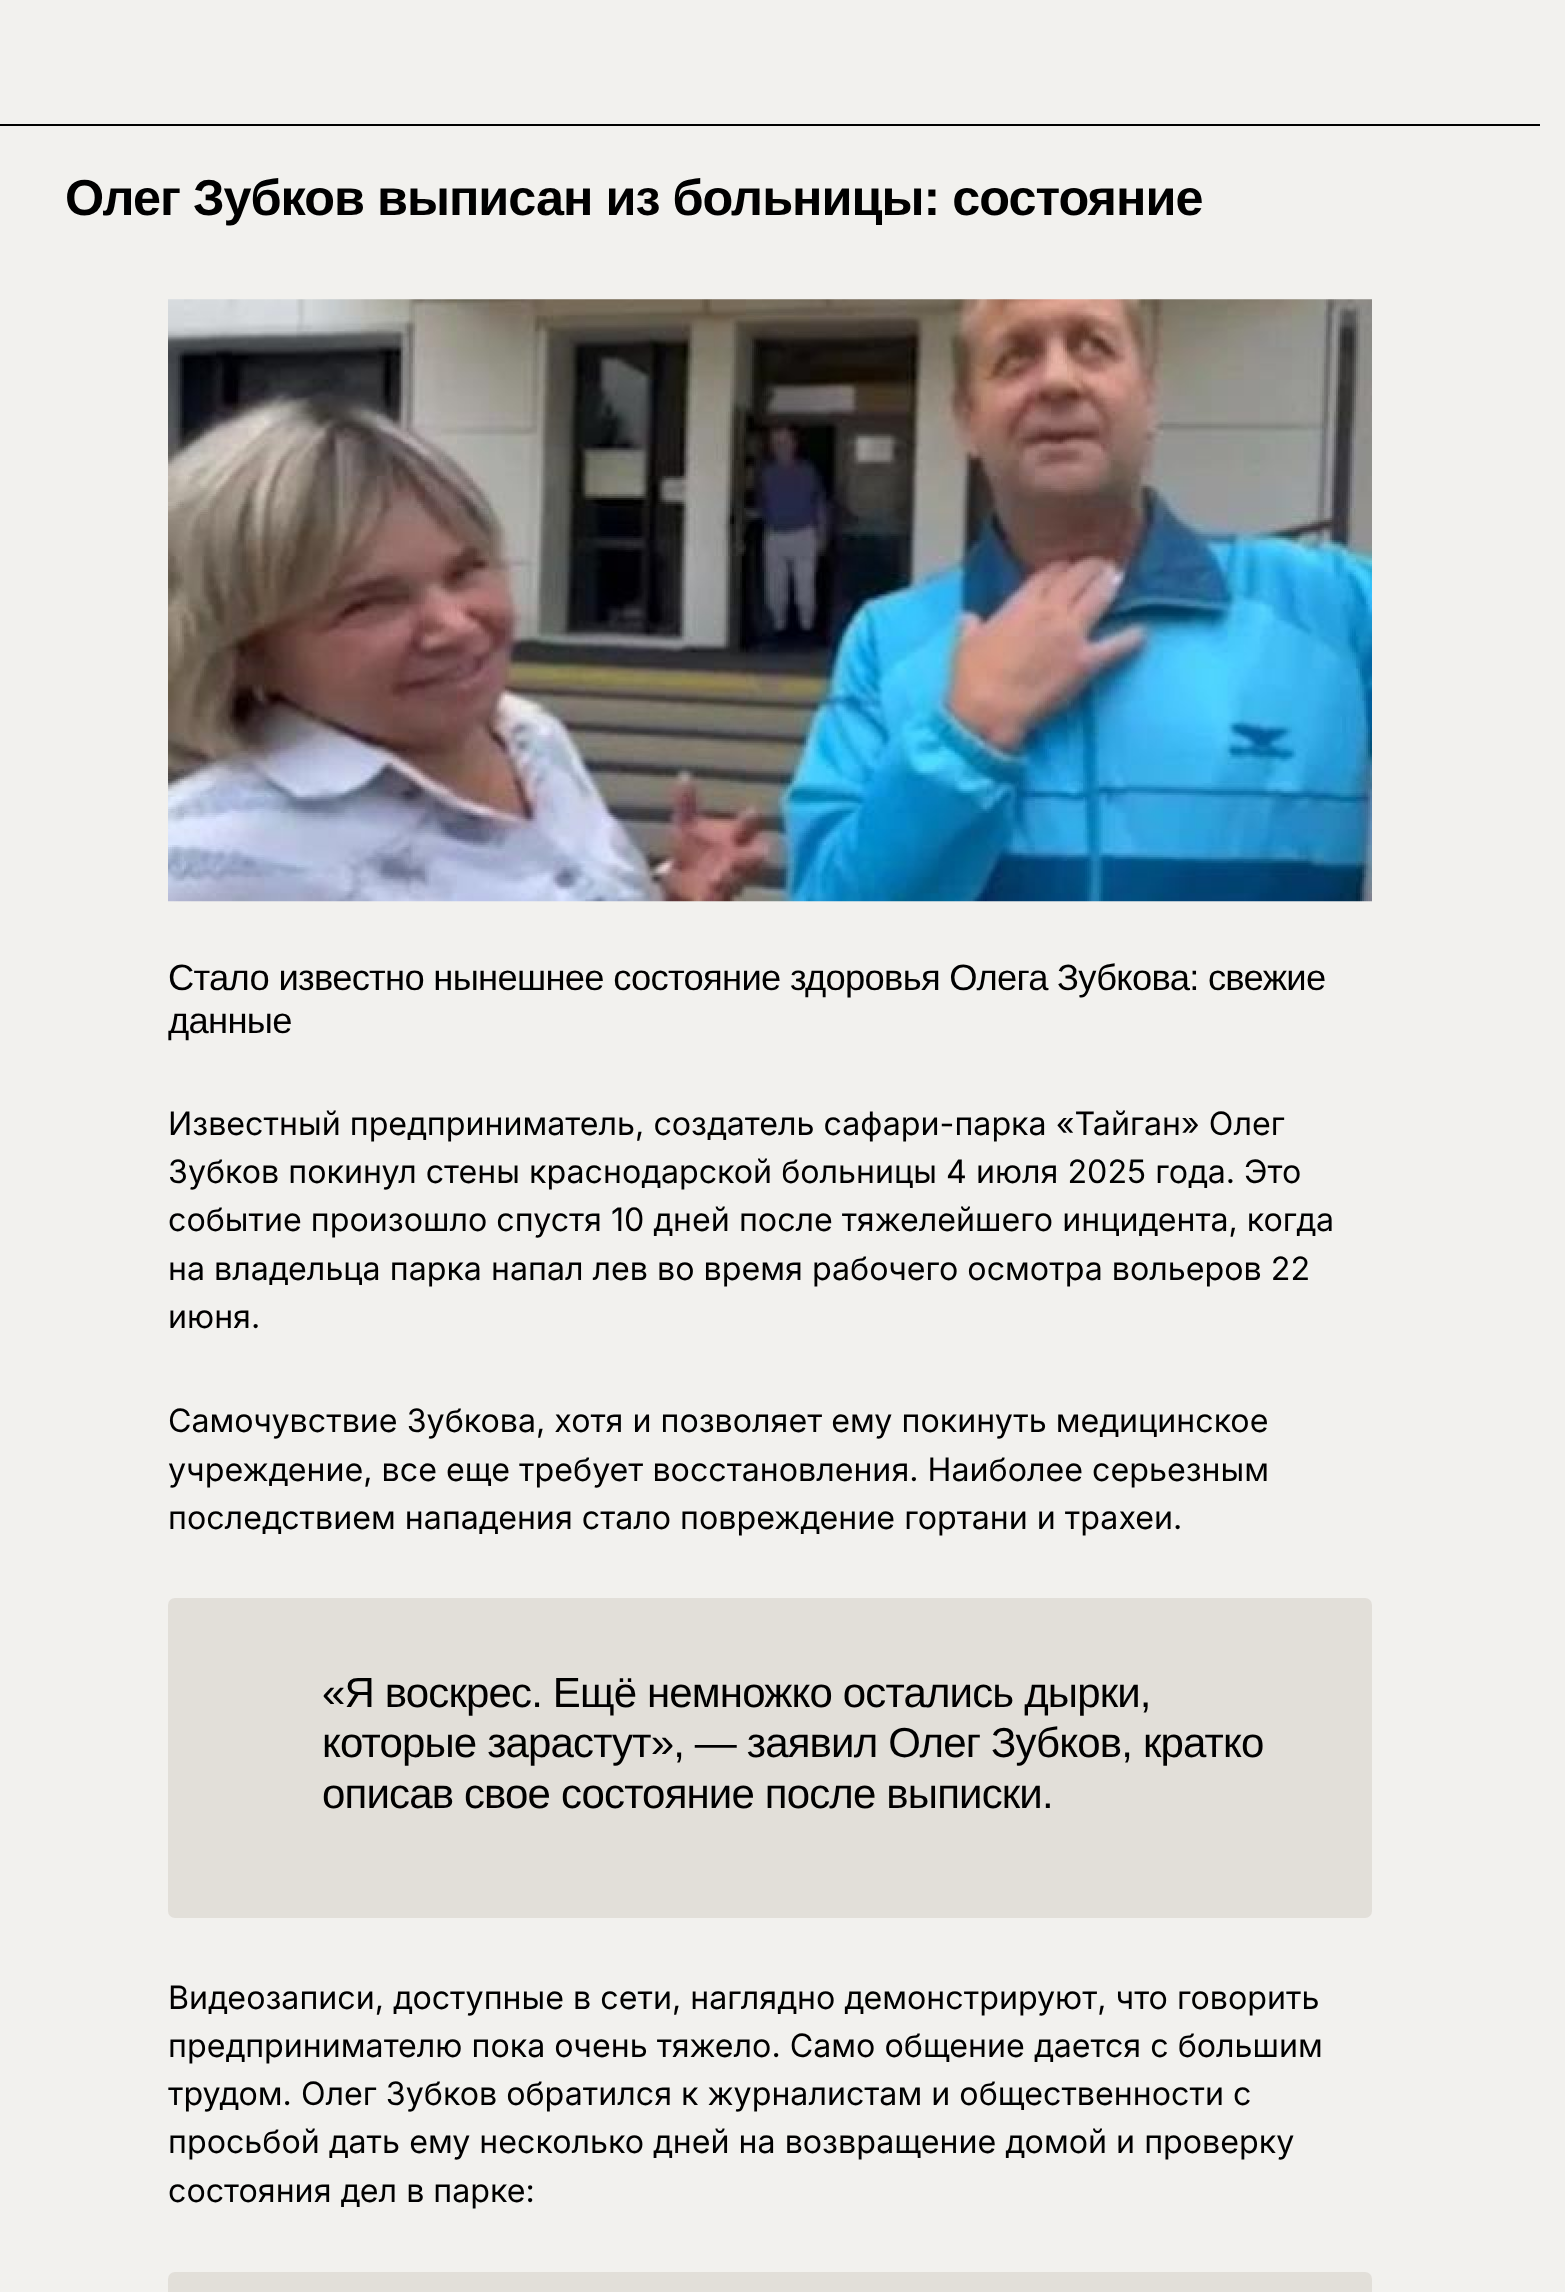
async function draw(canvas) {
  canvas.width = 1565;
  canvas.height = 2292;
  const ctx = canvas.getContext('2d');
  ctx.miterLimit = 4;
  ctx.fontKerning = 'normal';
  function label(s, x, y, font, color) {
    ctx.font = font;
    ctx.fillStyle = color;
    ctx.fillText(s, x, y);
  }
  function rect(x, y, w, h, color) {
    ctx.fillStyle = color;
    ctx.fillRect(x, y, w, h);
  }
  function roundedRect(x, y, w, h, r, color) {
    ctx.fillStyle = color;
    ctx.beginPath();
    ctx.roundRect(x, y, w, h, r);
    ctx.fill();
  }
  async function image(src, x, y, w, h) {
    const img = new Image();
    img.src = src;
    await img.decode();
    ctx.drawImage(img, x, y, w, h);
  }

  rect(0, 0, 1565, 2292, '#f2f1ee');
  rect(0, 124, 1540, 2, '#000');
  ctx.letterSpacing = '-1px';
  label('Олег Зубков выписан из больницы: состояние', 65, 215, 'bold 50.4px Liberation Sans', '#000');
  await image('assets/img1.png', 168, 299, 1204, 603);
  ctx.letterSpacing = '-0.73px';
  label('Стало известно нынешнее состояние здоровья Олега Зубкова: свежие', 168, 990, '36.4px Liberation Sans', '#000');
  label('данные', 168, 1033, '36.4px Liberation Sans', '#000');
  ctx.letterSpacing = '0px';
  label('Известный предприниматель, создатель сафари-парка «Тайган» Олег', 168, 1135, '32.2px Inter', '#000');
  label('Зубков покинул стены краснодарской больницы 4 июля 2025 года. Это', 168, 1183, '32.2px Inter', '#000');
  label('событие произошло спустя 10 дней после тяжелейшего инцидента, когда', 168, 1231, '32.2px Inter', '#000');
  label('на владельца парка напал лев во время рабочего осмотра вольеров 22', 168, 1280, '32.2px Inter', '#000');
  label('июня.', 168, 1328, '32.2px Inter', '#000');
  label('Самочувствие Зубкова, хотя и позволяет ему покинуть медицинское', 168, 1432, '32.2px Inter', '#000');
  label('учреждение, все еще требует восстановления. Наиболее серьезным', 168, 1481, '32.2px Inter', '#000');
  label('последствием нападения стало повреждение гортани и трахеи.', 168, 1529, '32.2px Inter', '#000');
  roundedRect(168, 1598, 1204, 320, 7, '#e2dfd9');
  ctx.letterSpacing = '-0.85px';
  label('«Я воскрес. Ещё немножко остались дырки,', 322, 1707, '42px Liberation Sans', '#000');
  label('которые зарастут», — заявил Олег Зубков, кратко', 322, 1757, '42px Liberation Sans', '#000');
  label('описав свое состояние после выписки.', 322, 1808, '42px Liberation Sans', '#000');
  ctx.letterSpacing = '0px';
  label('Видеозаписи, доступные в сети, наглядно демонстрируют, что говорить', 168, 2009, '32.2px Inter', '#000');
  label('предпринимателю пока очень тяжело. Само общение дается с большим', 168, 2057, '32.2px Inter', '#000');
  label('трудом. Олег Зубков обратился к журналистам и общественности с', 168, 2105, '32.2px Inter', '#000');
  label('просьбой дать ему несколько дней на возвращение домой и проверку', 168, 2153, '32.2px Inter', '#000');
  label('состояния дел в парке:', 168, 2202, '32.2px Inter', '#000');
  roundedRect(168, 2272, 1204, 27, 7, '#e2dfd9');
}

draw(document.querySelector('canvas'));
